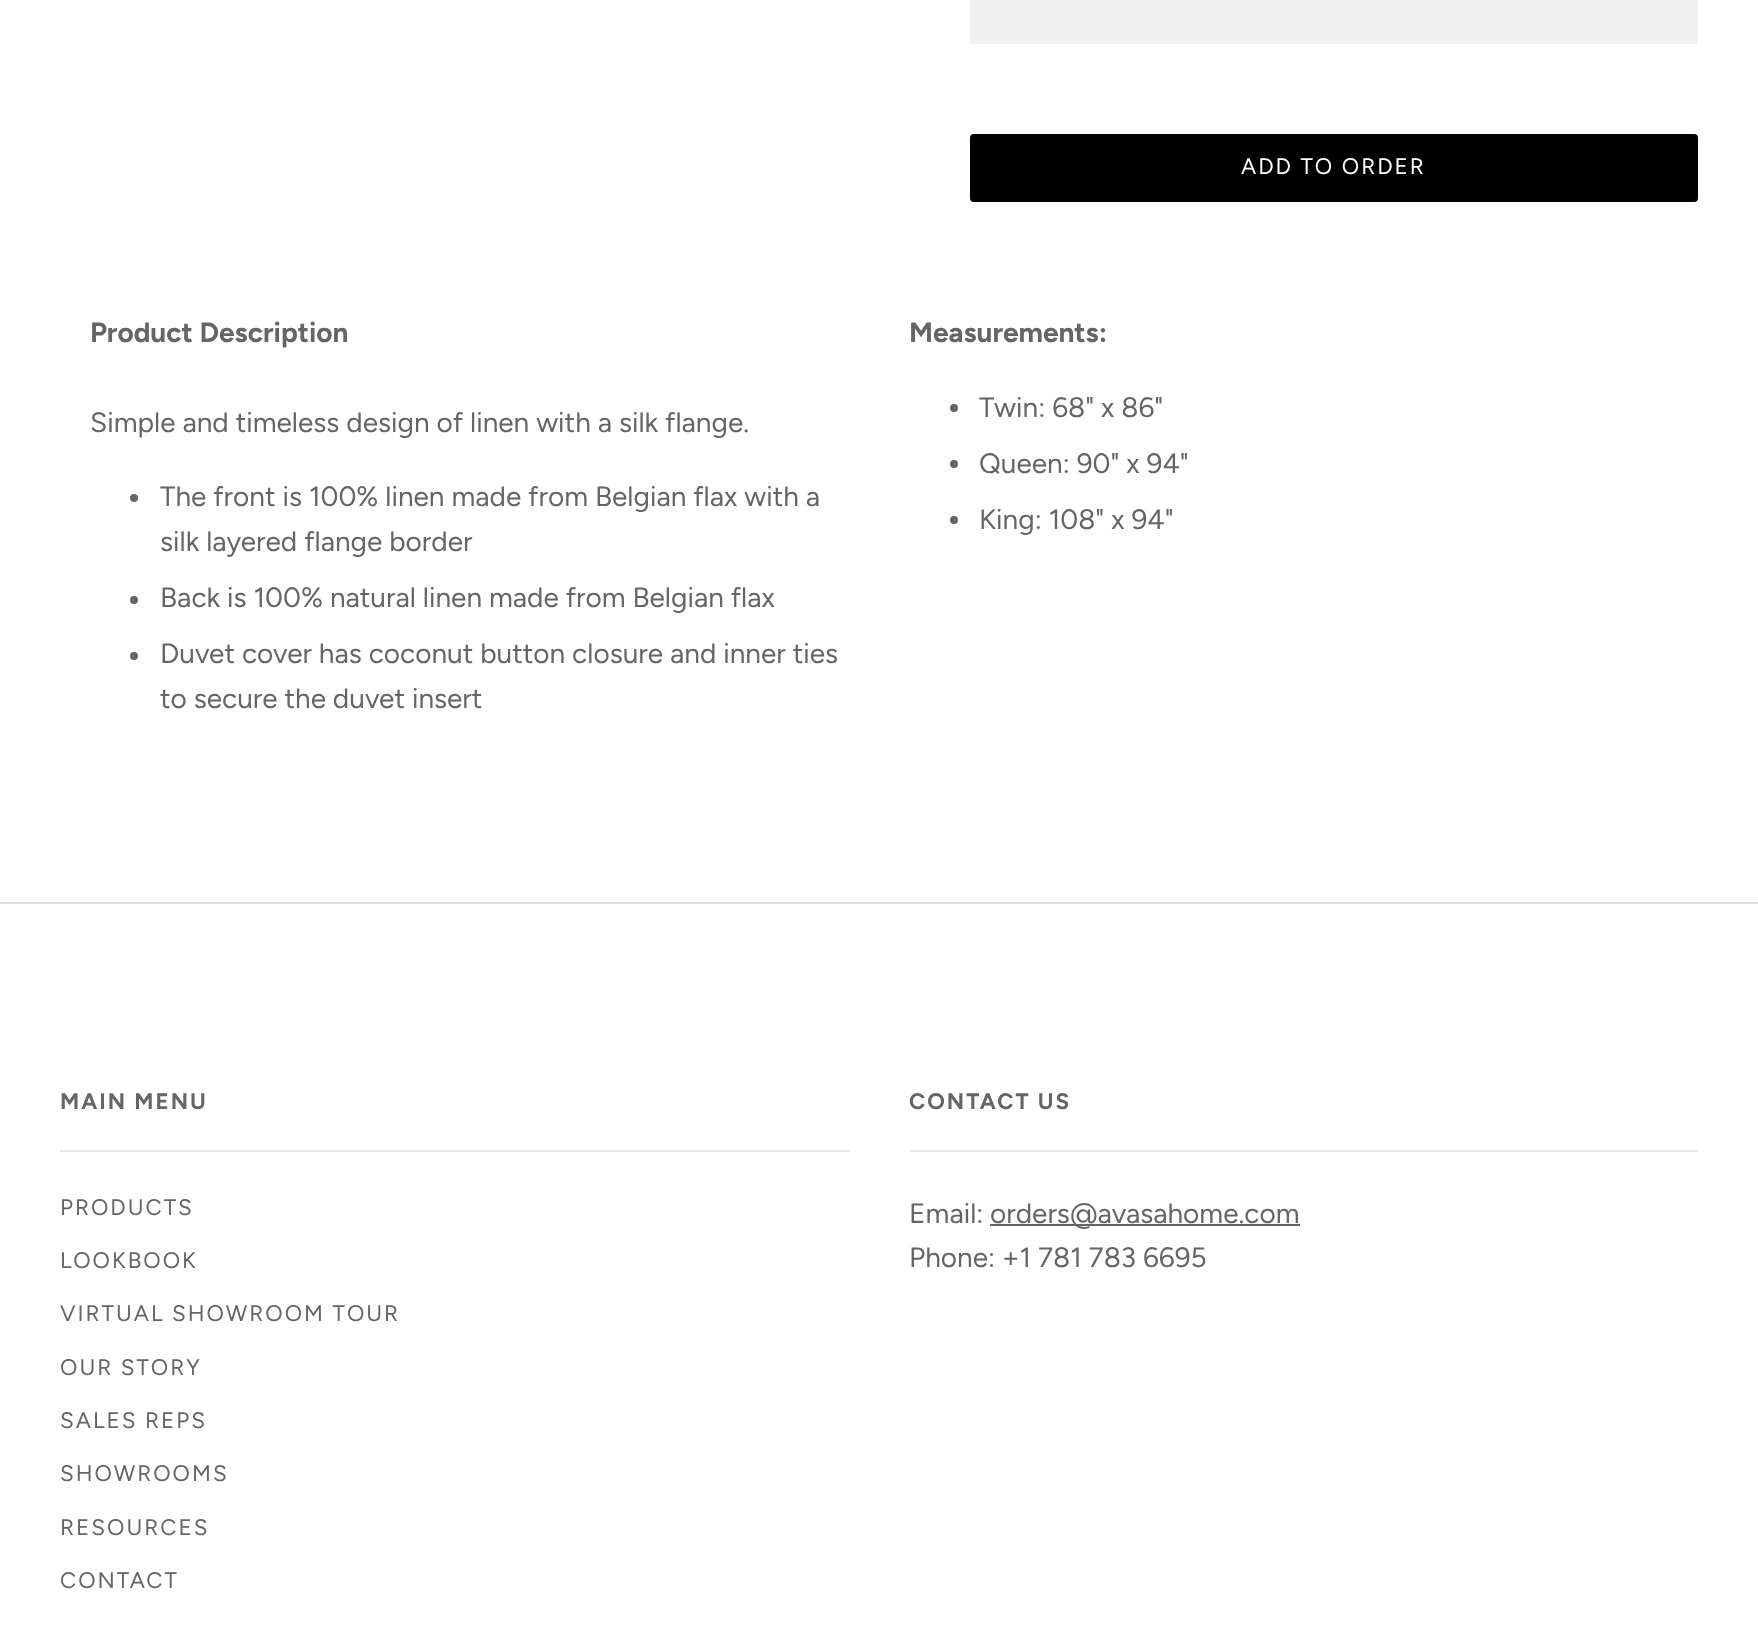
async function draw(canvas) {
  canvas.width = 1758;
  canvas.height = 1634;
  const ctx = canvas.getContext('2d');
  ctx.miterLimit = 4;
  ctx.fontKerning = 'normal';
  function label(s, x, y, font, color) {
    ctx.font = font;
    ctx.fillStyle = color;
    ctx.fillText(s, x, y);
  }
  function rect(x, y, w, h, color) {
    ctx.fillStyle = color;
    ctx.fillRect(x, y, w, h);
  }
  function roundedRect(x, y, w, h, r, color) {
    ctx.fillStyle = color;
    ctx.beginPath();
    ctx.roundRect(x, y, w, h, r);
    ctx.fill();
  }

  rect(0, 0, 1758, 1634, '#fff');
  rect(970, 0, 728, 44, '#f0f0f0');
  roundedRect(970, 134, 728, 68, 4, '#000');
  ctx.letterSpacing = '2px';
  label('ADD TO ORDER', 1241, 174, '22.4px Figtree', '#fff');
  ctx.letterSpacing = '0px';
  label('Product Description', 90, 342, 'bold 28px Figtree', '#656565');
  label('Simple and timeless design of linen with a silk flange.', 90, 432, '28px Figtree', '#656565');
  ctx.beginPath();
  ctx.arc(134, 498, 4, 0, 2 * Math.PI);
  ctx.fill();
  label('The front is 100% linen made from Belgian flax with a', 160, 506, '28px Figtree', '#656565');
  label('silk layered flange border', 160, 551, '28px Figtree', '#656565');
  ctx.beginPath();
  ctx.arc(134, 600, 4, 0, 2 * Math.PI);
  ctx.fill();
  label('Back is 100% natural linen made from Belgian flax', 160, 607, '28px Figtree', '#656565');
  ctx.beginPath();
  ctx.arc(134, 656, 4, 0, 2 * Math.PI);
  ctx.fill();
  label('Duvet cover has coconut button closure and inner ties', 160, 663, '28px Figtree', '#656565');
  label('to secure the duvet insert', 160, 708, '28px Figtree', '#656565');
  label('Measurements:', 909, 342, 'bold 28px Figtree', '#656565');
  ctx.beginPath();
  ctx.arc(954, 408, 4, 0, 2 * Math.PI);
  ctx.fill();
  label('Twin: 68" x 86"', 979, 417, '28px Figtree', '#656565');
  ctx.beginPath();
  ctx.arc(954, 464, 4, 0, 2 * Math.PI);
  ctx.fill();
  label('Queen: 90" x 94"', 979, 473, '28px Figtree', '#656565');
  ctx.beginPath();
  ctx.arc(954, 520, 4, 0, 2 * Math.PI);
  ctx.fill();
  label('King: 108" x 94"', 979, 529, '28px Figtree', '#656565');
  rect(0, 902, 1758, 2, '#ddd');
  ctx.letterSpacing = '2px';
  label('MAIN MENU', 60, 1109, 'bold 22.4px Figtree', '#656565');
  rect(60, 1150, 790, 2, '#e8e8e8');
  label('PRODUCTS', 60, 1215, '22.4px Figtree', '#656565');
  label('LOOKBOOK', 60, 1268, '22.4px Figtree', '#656565');
  label('VIRTUAL SHOWROOM TOUR', 60, 1321, '22.4px Figtree', '#656565');
  label('OUR STORY', 60, 1375, '22.4px Figtree', '#656565');
  label('SALES REPS', 60, 1428, '22.4px Figtree', '#656565');
  label('SHOWROOMS', 60, 1481, '22.4px Figtree', '#656565');
  label('RESOURCES', 60, 1535, '22.4px Figtree', '#656565');
  label('CONTACT', 60, 1588, '22.4px Figtree', '#656565');
  label('CONTACT US', 909, 1109, 'bold 22.4px Figtree', '#656565');
  rect(910, 1150, 788, 2, '#e8e8e8');
  ctx.letterSpacing = '0px';
  label('Email:', 909, 1223, '28px Figtree', '#656565');
  rect(990, 1224, 310, 2, '#656565');
  label('orders@avasahome.com', 990, 1223, '28px Figtree', '#656565');
  label('Phone: +1 781 783 6695', 909, 1267, '28px Figtree', '#656565');
}

draw(document.querySelector('canvas'));
